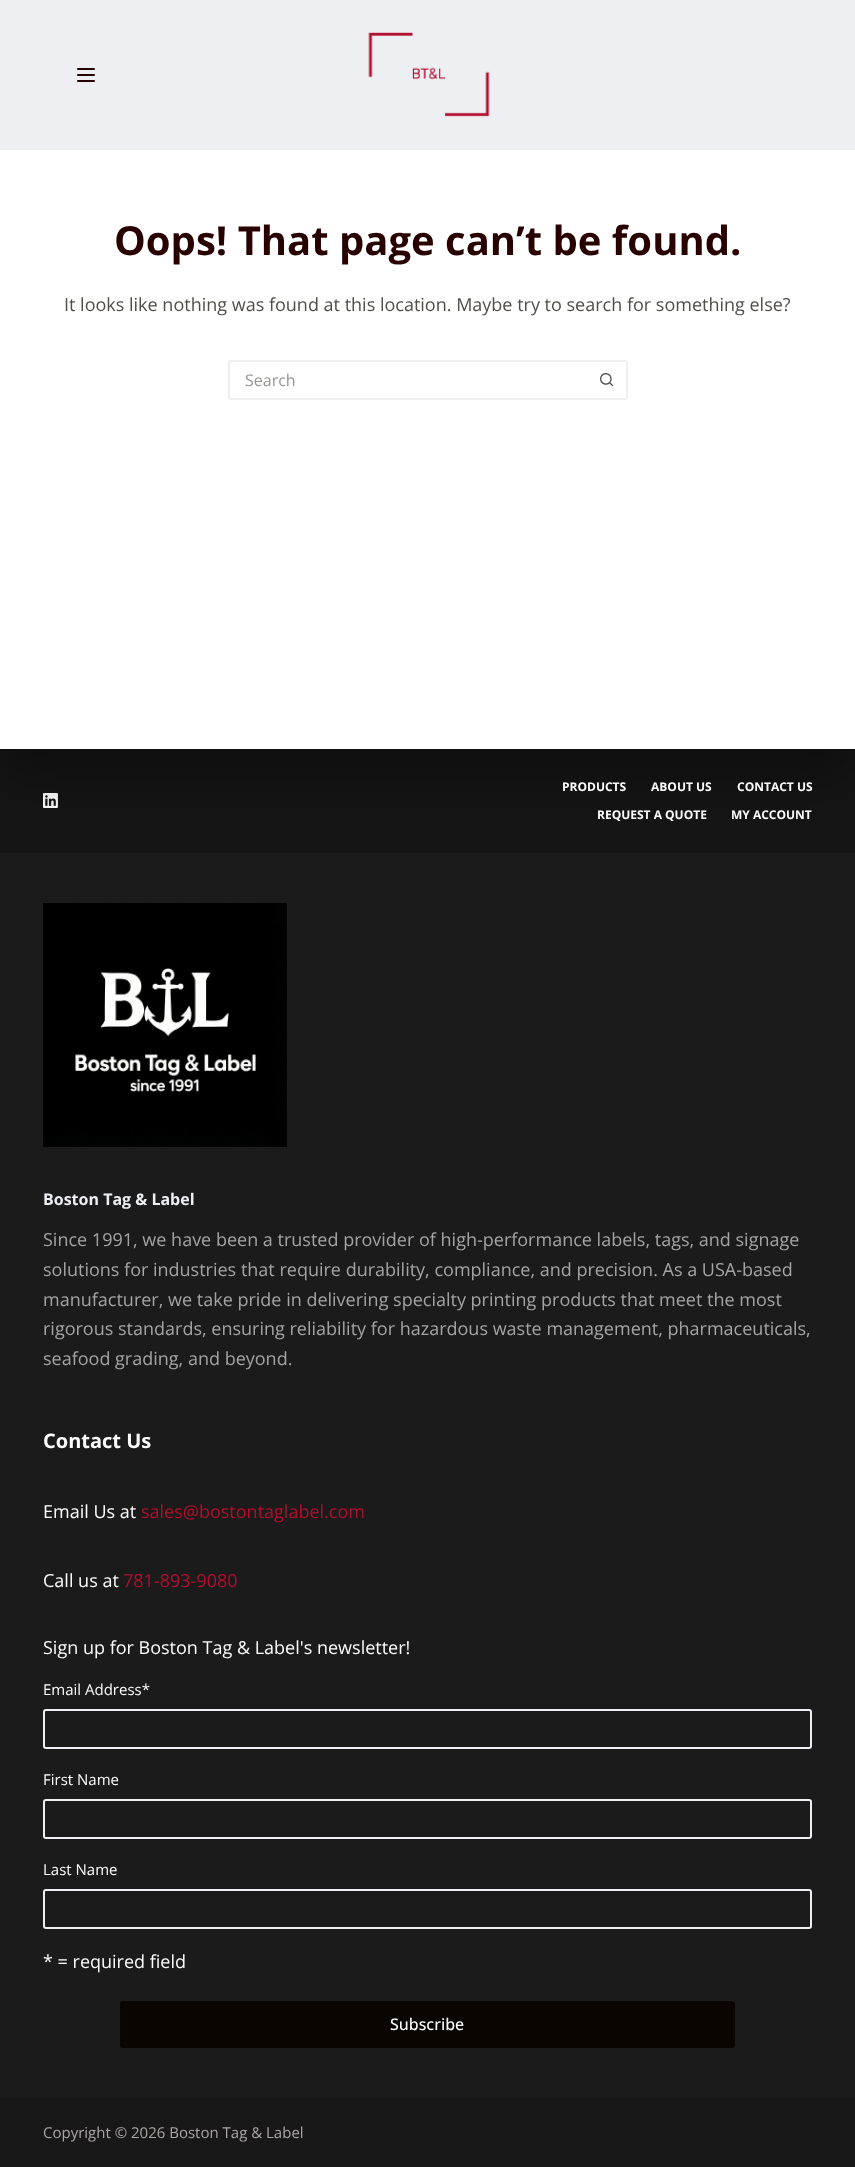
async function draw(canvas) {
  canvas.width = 855;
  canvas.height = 2167;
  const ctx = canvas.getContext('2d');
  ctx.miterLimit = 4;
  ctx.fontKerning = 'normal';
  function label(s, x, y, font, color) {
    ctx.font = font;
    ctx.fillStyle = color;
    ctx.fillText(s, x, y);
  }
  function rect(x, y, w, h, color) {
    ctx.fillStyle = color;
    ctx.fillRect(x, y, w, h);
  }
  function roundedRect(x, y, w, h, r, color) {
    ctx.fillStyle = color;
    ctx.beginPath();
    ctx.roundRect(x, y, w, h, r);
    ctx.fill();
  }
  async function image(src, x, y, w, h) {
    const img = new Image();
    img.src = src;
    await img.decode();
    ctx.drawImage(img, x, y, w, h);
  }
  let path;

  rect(0, 0, 855, 2167, '#fff');
  rect(0, 853, 855, 1245, '#1b1b1b');
  rect(0, 749, 855, 104, '#151515');
  await image('assets/img3.png', 43, 793, 15, 15);
  ctx.save();
  ctx.beginPath();
  ctx.rect(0, 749, 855, 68);
  ctx.clip();
  ctx.fillStyle = '#0000004d';
  ctx.filter = 'blur(25px)';
  ctx.beginPath();
  ctx.rect(0, 180, 855, 599);
  ctx.fill();
  ctx.filter = 'none';
  ctx.restore();
  rect(0, 0, 855, 150, '#edeff2');
  roundedRect(77, 68, 18, 2, 1, '#280000');
  roundedRect(77, 74, 18, 2, 1, '#280000');
  roundedRect(77, 80, 18, 2, 1, '#280000');
  await image('assets/img1.png', 368, 32, 122, 85);
  label('Oops! That page can’t be found.', 114, 255, 'bold 40px Open Sans', '#280000');
  label('It looks like nothing was found at this location. Maybe try to search for something else?', 64, 311, '18px Open Sans', '#504e4a');
  ctx.fillStyle = '#edeff2';
  path = new Path2D('M231 360H588V400H231C229 400 228 399 228 397V363C228 361 229 360 231 360ZM231 362H588V398H231L230 397V363Z');
  ctx.fill(path, 'evenodd');
  label('Search', 245, 386, '16px Open Sans', '#969592');
  ctx.fillStyle = '#edeff2';
  path = new Path2D('M588 360H625C627 360 628 361 628 363V397C628 399 627 400 625 400H588ZM588 362H625C626 362 626 362 626 363V397C626 398 626 398 625 398H588Z');
  ctx.fill(path, 'evenodd');
  await image('assets/img2.png', 600, 373, 13, 13);
  label('PRODUCTS', 562, 791, 'bold 12px Open Sans', '#fdfdfd');
  label('ABOUT US', 651, 791, 'bold 12px Open Sans', '#fdfdfd');
  label('CONTACT US', 737, 791, 'bold 12px Open Sans', '#fdfdfd');
  label('REQUEST A QUOTE', 597, 819, 'bold 12px Open Sans', '#fdfdfd');
  label('MY ACCOUNT', 731, 819, 'bold 12px Open Sans', '#fdfdfd');
  await image('assets/img4.png', 43, 903, 244, 244);
  label('Boston Tag & Label', 43, 1205, 'bold 16px Open Sans', '#edeff2');
  label('Since 1991, we have been a trusted provider of high-performance labels, tags, and signage', 43, 1246, '18px Open Sans', '#a4a4a4');
  label('solutions for industries that require durability, compliance, and precision. As a USA-based', 43, 1276, '18px Open Sans', '#a4a4a4');
  label('manufacturer, we take pride in delivering specialty printing products that meet the most', 43, 1306, '18px Open Sans', '#a4a4a4');
  label('rigorous standards, ensuring reliability for hazardous waste management, pharmaceuticals,', 43, 1335, '18px Open Sans', '#a4a4a4');
  label('seafood grading, and beyond.', 43, 1365, '18px Open Sans', '#a4a4a4');
  label('Contact Us', 43, 1448, 'bold 20px Open Sans', '#fdfdfd');
  label('Email Us at', 43, 1518, '18px Open Sans', '#fdfdfd');
  label('sales@bostontaglabel.com', 141, 1518, '18px Open Sans', '#b10f2e');
  label('Call us at', 43, 1587, '18px Open Sans', '#fdfdfd');
  label('781-893-9080', 123, 1587, '18px Open Sans', '#b10f2e');
  label('Sign up for Boston Tag & Label\'s newsletter!', 43, 1654, '18px Open Sans', '#fdfdfd');
  label('Email Address*', 43, 1695, '15px Open Sans', '#fdfdfd');
  ctx.beginPath();
  ctx.roundRect(44, 1710, 767, 38, 2);
  ctx.strokeStyle = '#edeff2';
  ctx.lineWidth = 2;
  ctx.stroke();
  label('First Name', 43, 1785, '15px Open Sans', '#fdfdfd');
  ctx.beginPath();
  ctx.roundRect(44, 1800, 767, 38, 2);
  ctx.stroke();
  label('Last Name', 43, 1875, '15px Open Sans', '#fdfdfd');
  ctx.beginPath();
  ctx.roundRect(44, 1890, 767, 38, 2);
  ctx.stroke();
  label('* = required field', 43, 1968, '18px Open Sans', '#fdfdfd');
  roundedRect(120, 2001, 615, 47, 3, '#0a0500');
  label('Subscribe', 390, 2030, '500 16px Open Sans', '#fdfdfd');
  rect(0, 2098, 855, 69, '#181818');
  label('Copyright © 2026 Boston Tag & Label', 43, 2138, '15px Open Sans', '#aba6a6');
}

draw(document.querySelector('canvas'));
